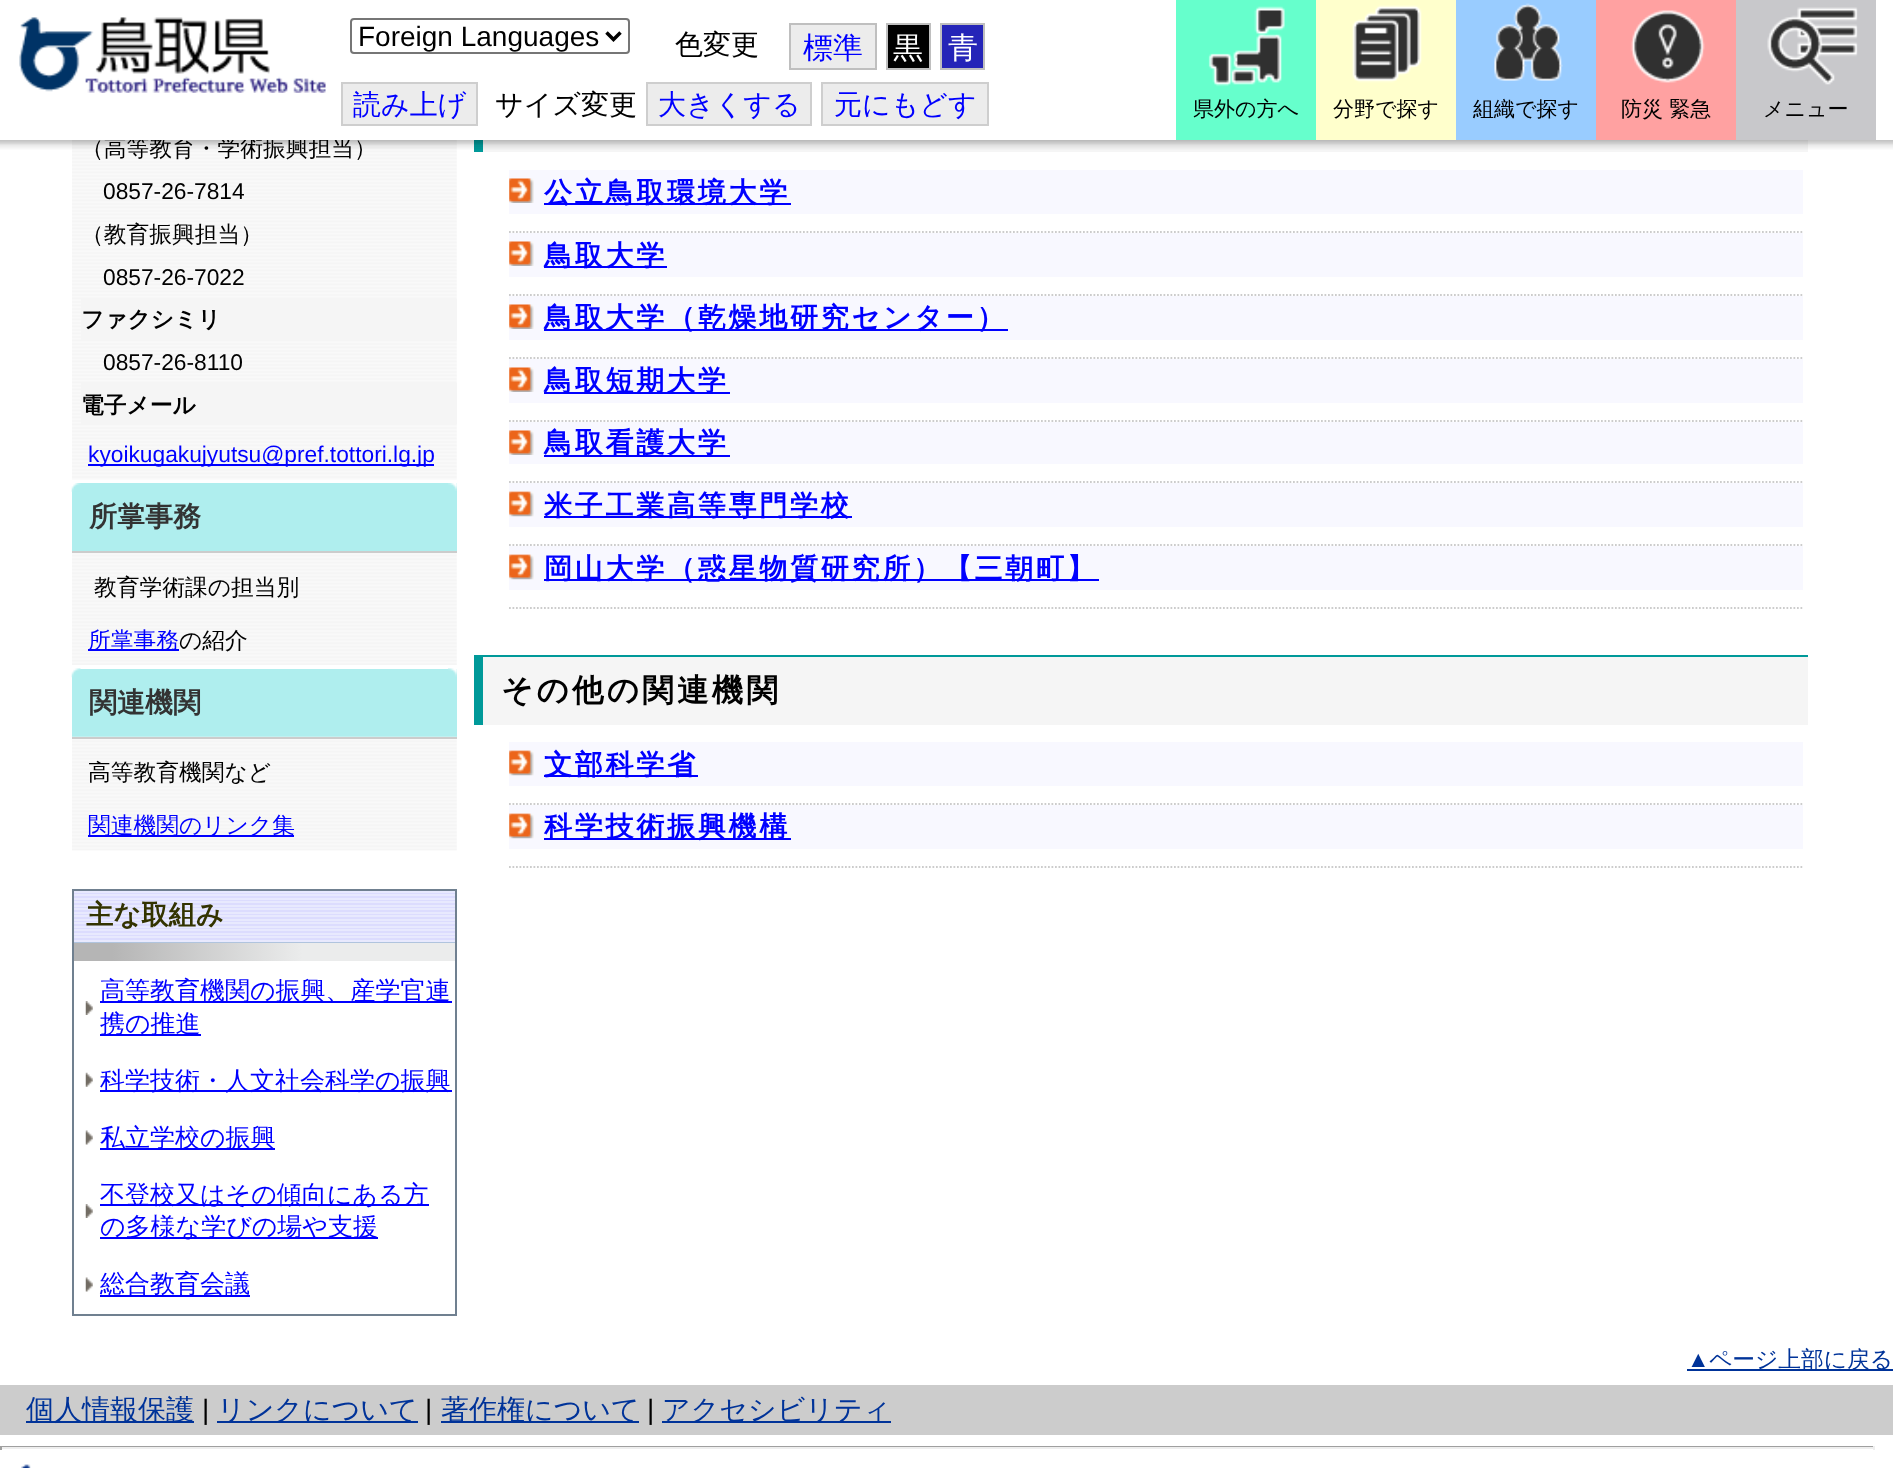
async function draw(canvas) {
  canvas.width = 1893;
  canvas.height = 1468;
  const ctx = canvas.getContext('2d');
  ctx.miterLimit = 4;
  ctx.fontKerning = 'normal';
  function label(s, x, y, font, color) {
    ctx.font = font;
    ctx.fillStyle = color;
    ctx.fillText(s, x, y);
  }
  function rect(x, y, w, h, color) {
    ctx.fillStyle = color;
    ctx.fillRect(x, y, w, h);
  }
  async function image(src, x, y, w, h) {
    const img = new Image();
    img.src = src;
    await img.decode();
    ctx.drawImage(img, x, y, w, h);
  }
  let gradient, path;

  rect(0, 0, 1893, 1468, '#fff');
  await image('assets/img7.png', 72, 140, 385, 340);
  rect(483, 140, 1325, 12, '#f5f5f5');
  rect(474, 140, 9, 12, '#099');
  ctx.fillStyle = '#0000001a';
  ctx.filter = 'blur(4.5px)';
  ctx.beginPath();
  ctx.rect(-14, 2, 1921, 140);
  ctx.fill();
  ctx.filter = 'none';
  ctx.filter = 'blur(4.5px)';
  ctx.beginPath();
  ctx.rect(-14, 2, 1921, 140);
  ctx.fill();
  ctx.filter = 'none';
  ctx.filter = 'blur(4.5px)';
  ctx.beginPath();
  ctx.rect(-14, 2, 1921, 140);
  ctx.fill();
  ctx.filter = 'none';
  ctx.filter = 'blur(4.5px)';
  ctx.beginPath();
  ctx.rect(-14, 2, 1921, 140);
  ctx.fill();
  ctx.filter = 'none';
  label('（高等教育・学術振興担当）', 81, 156, '500 22.75px WenQuanYi Zen Hei', '#000');
  rect(0, 0, 1893, 140, '#fff');
  await image('assets/img1.png', 19, 17, 307, 76);
  ctx.beginPath();
  ctx.roundRect(351, 19, 278, 34, 3);
  ctx.strokeStyle = '#767676';
  ctx.lineWidth = 2;
  ctx.stroke();
  path = new Path2D('M606.5 32.5L613.5 39.5L620.5 32.5');
  ctx.strokeStyle = '#000';
  ctx.lineWidth = 3.5;
  ctx.stroke(path);
  label('Foreign Languages', 358, 46, '28px Liberation Sans', '#000');
  label('色変更', 675, 54, '500 28px WenQuanYi Zen Hei', '#000');
  ctx.fillStyle = '#ececec';
  ctx.beginPath();
  ctx.rect(790, 24, 86, 45);
  ctx.fill();
  ctx.strokeStyle = '#bfbfbf';
  ctx.lineWidth = 2;
  ctx.stroke();
  label('標準', 803, 58, '500 30px WenQuanYi Zen Hei', '#00f');
  ctx.fillStyle = '#000';
  ctx.beginPath();
  ctx.rect(887, 24, 43, 45);
  ctx.fill();
  ctx.stroke();
  label('黒', 893, 58, '500 30px WenQuanYi Zen Hei', '#fff');
  ctx.fillStyle = '#2525b8';
  ctx.beginPath();
  ctx.rect(941, 24, 43, 45);
  ctx.fill();
  ctx.stroke();
  label('青', 948, 58, '500 30px WenQuanYi Zen Hei', '#fff');
  ctx.fillStyle = '#ececec';
  ctx.beginPath();
  ctx.rect(342, 83, 135, 42);
  ctx.fill();
  ctx.strokeStyle = '#cecece';
  ctx.stroke();
  label('読み上げ', 353, 114, '500 28px WenQuanYi Zen Hei', '#00f');
  label('サイズ変更', 495, 114, '500 28px WenQuanYi Zen Hei', '#000');
  rect(648, 84, 162, 40, '#ececec');
  label('大きくする', 658, 114, '500 28px WenQuanYi Zen Hei', '#00f');
  rect(646, 82, 166, 2, '#cecece');
  rect(646, 124, 40, 2, '#cecece');
  rect(646, 82, 2, 44, '#cecece');
  rect(810, 82, 2, 44, '#cecece');
  rect(686, 124, 126, 2, '#cecece');
  rect(823, 84, 164, 40, '#ececec');
  label('元にもどす', 834, 114, '500 28px WenQuanYi Zen Hei', '#00f');
  rect(821, 82, 168, 2, '#cecece');
  rect(821, 124, 40, 2, '#cecece');
  rect(821, 82, 2, 44, '#cecece');
  rect(987, 82, 2, 44, '#cecece');
  rect(861, 124, 128, 2, '#cecece');
  rect(1176, 0, 140, 140, '#6fc');
  await image('assets/img2.png', 1208, 6, 77, 81);
  label('県外の方へ', 1193, 116, '500 21px WenQuanYi Zen Hei', '#000');
  rect(1316, 0, 140, 140, '#ffc');
  await image('assets/img3.png', 1352, 5, 70, 78);
  label('分野で探す', 1333, 116, '500 21px WenQuanYi Zen Hei', '#000');
  rect(1456, 0, 140, 140, '#9cf');
  await image('assets/img4.png', 1494, 3, 69, 78);
  label('組織で探す', 1473, 116, '500 21px WenQuanYi Zen Hei', '#000');
  rect(1596, 0, 140, 140, '#ffa1a1');
  await image('assets/img5.png', 1630, 10, 75, 73);
  label('防災 緊急', 1621, 116, '500 21px WenQuanYi Zen Hei', '#000');
  rect(1736, 0, 140, 140, '#c8c8cb');
  await image('assets/img6.png', 1767, 7, 91, 78);
  label('メニュー', 1763, 116, '500 21px WenQuanYi Zen Hei', '#000');
  label('0857-26-7814', 103, 199, '22.75px Liberation Sans', '#000');
  label('（教育振興担当）', 81, 242, '500 22.75px WenQuanYi Zen Hei', '#000');
  label('0857-26-7022', 103, 285, '22.75px Liberation Sans', '#000');
  rect(81, 299, 376, 41, '#f5f5f5');
  label('ファクシミリ', 81, 327, 'bold 22.75px WenQuanYi Zen Hei', '#000');
  label('0857-26-8110', 103, 370, '22.75px Liberation Sans', '#000');
  rect(81, 383, 376, 41, '#f5f5f5');
  label('電子メール', 81, 413, 'bold 22.75px WenQuanYi Zen Hei', '#000');
  rect(88, 464, 346, 2, '#00f');
  label('kyoikugakujyutsu@pref.tottori.lg.jp', 88, 462, '22.75px Liberation Sans', '#00f');
  rect(72, 483, 385, 68, '#afeeee');
  await image('assets/img8.png', 71, 483, 10, 9);
  await image('assets/img9.png', 448, 483, 9, 8);
  label('所掌事務', 89, 526, 'bold 28px WenQuanYi Zen Hei', '#333');
  await image('assets/img10.png', 72, 553, 385, 112);
  rect(72, 551, 385, 2, '#ccc');
  label('教育学術課の担当別', 94, 595, '500 22.75px WenQuanYi Zen Hei', '#000');
  rect(88, 649, 91, 2, '#00f');
  label('所掌事務', 88, 648, '500 22.75px WenQuanYi Zen Hei', '#00f');
  label('の紹介', 179, 648, '500 22.75px WenQuanYi Zen Hei', '#000');
  rect(72, 669, 385, 68, '#afeeee');
  await image('assets/img11.png', 71, 668, 10, 10);
  await image('assets/img12.png', 448, 668, 9, 9);
  label('関連機関', 89, 712, 'bold 28px WenQuanYi Zen Hei', '#333');
  await image('assets/img13.png', 72, 736, 385, 115);
  rect(72, 737, 385, 2, '#ccc');
  label('高等教育機関など', 88, 780, '500 22.75px WenQuanYi Zen Hei', '#000');
  rect(88, 835, 206, 2, '#00f');
  label('関連機関のリンク集', 88, 833, '500 22.75px WenQuanYi Zen Hei', '#00f');
  ctx.strokeStyle = '#708090';
  ctx.strokeRect(73, 890, 383, 425);
  await image('assets/img14.png', 74, 891, 381, 51);
  rect(74, 942, 381, 1, '#b0c4de');
  label('主な取組み', 86, 924, 'bold 27.25px WenQuanYi Zen Hei', '#330');
  gradient = ctx.createLinearGradient(74, 952, 455, 952);
  gradient.addColorStop(0, '#b5b5b5');
  gradient.addColorStop(0.1, '#b5b5b5');
  gradient.addColorStop(0.6, '#ebecec');
  gradient.addColorStop(1, '#ebecec');
  ctx.fillStyle = gradient;
  ctx.fillRect(74, 943, 381, 18);
  await image('assets/img15.png', 85, 1001, 8, 14);
  rect(100, 1001, 352, 2, '#00f');
  label('高等教育機関の振興、産学官連', 100, 999, '500 25px WenQuanYi Zen Hei', '#00f');
  rect(100, 1034, 101, 2, '#00f');
  label('携の推進', 100, 1032, '500 25px WenQuanYi Zen Hei', '#00f');
  await image('assets/img16.png', 85, 1072, 8, 15);
  rect(100, 1090, 352, 2, '#00f');
  label('科学技術・人文社会科学の振興', 100, 1089, '500 25px WenQuanYi Zen Hei', '#00f');
  await image('assets/img17.png', 85, 1130, 8, 15);
  rect(100, 1148, 175, 2, '#00f');
  label('私立学校の振興', 100, 1146, '500 25px WenQuanYi Zen Hei', '#00f');
  await image('assets/img15.png', 85, 1204, 8, 14);
  rect(100, 1204, 329, 2, '#00f');
  label('不登校又はその傾向にある方', 100, 1203, '500 25px WenQuanYi Zen Hei', '#00f');
  rect(100, 1237, 278, 2, '#00f');
  label('の多様な学びの場や支援', 100, 1235, '500 25px WenQuanYi Zen Hei', '#00f');
  await image('assets/img17.png', 85, 1277, 8, 15);
  rect(100, 1295, 150, 2, '#00f');
  label('総合教育会議', 100, 1292, '500 25px WenQuanYi Zen Hei', '#00f');
  rect(509, 170, 1294, 44, '#f8f8ff');
  await image('assets/img18.png', 509, 178, 25, 25);
  rect(544, 203, 247, 2, '#00f');
  ctx.letterSpacing = '2.75px';
  label('公立鳥取環境大学', 544, 202, 'bold 28px WenQuanYi Zen Hei', '#00f');
  path = new Path2D('M509 232H1802.5');
  ctx.strokeStyle = '#ccc';
  ctx.lineWidth = 1.8;
  ctx.setLineDash([1.75, 1.75]);
  ctx.stroke(path);
  rect(509, 233, 1294, 44, '#f8f8ff');
  await image('assets/img18.png', 509, 241, 25, 25);
  rect(544, 266, 123, 2, '#00f');
  label('鳥取大学', 544, 265, 'bold 28px WenQuanYi Zen Hei', '#00f');
  path = new Path2D('M509 295H1802.5');
  ctx.stroke(path);
  rect(509, 296, 1294, 44, '#f8f8ff');
  await image('assets/img18.png', 509, 304, 25, 25);
  rect(544, 329, 464, 2, '#00f');
  label('鳥取大学（乾燥地研究センター）', 544, 327, 'bold 28px WenQuanYi Zen Hei', '#00f');
  path = new Path2D('M509 358H1802.5');
  ctx.stroke(path);
  rect(509, 359, 1294, 44, '#f8f8ff');
  await image('assets/img18.png', 509, 367, 25, 25);
  rect(544, 392, 186, 2, '#00f');
  label('鳥取短期大学', 544, 390, 'bold 28px WenQuanYi Zen Hei', '#00f');
  path = new Path2D('M509 421H1802.5');
  ctx.stroke(path);
  rect(509, 422, 1294, 42, '#f8f8ff');
  await image('assets/img18.png', 509, 430, 25, 25);
  rect(544, 455, 186, 2, '#00f');
  label('鳥取看護大学', 544, 452, 'bold 28px WenQuanYi Zen Hei', '#00f');
  path = new Path2D('M509 482H1802.5');
  ctx.stroke(path);
  rect(509, 483, 1294, 44, '#f8f8ff');
  await image('assets/img19.png', 509, 491, 25, 26);
  rect(544, 516, 308, 2, '#00f');
  label('米子工業高等専門学校', 544, 515, 'bold 28px WenQuanYi Zen Hei', '#00f');
  path = new Path2D('M509 545H1802.5');
  ctx.stroke(path);
  rect(509, 546, 1294, 44, '#f8f8ff');
  await image('assets/img19.png', 509, 554, 25, 26);
  rect(544, 579, 555, 2, '#00f');
  label('岡山大学（惑星物質研究所）【三朝町】', 544, 578, 'bold 28px WenQuanYi Zen Hei', '#00f');
  path = new Path2D('M509 608H1802.5');
  ctx.stroke(path);
  rect(483, 657, 1325, 68, '#f5f5f5');
  rect(483, 655, 1325, 2, '#099');
  rect(474, 655, 9, 70, '#099');
  ctx.letterSpacing = '3.25px';
  label('その他の関連機関', 501, 701, 'bold 31.5px WenQuanYi Zen Hei', '#000');
  rect(509, 742, 1294, 44, '#f8f8ff');
  await image('assets/img19.png', 509, 750, 25, 26);
  rect(544, 775, 154, 2, '#00f');
  ctx.letterSpacing = '2.75px';
  label('文部科学省', 544, 774, 'bold 28px WenQuanYi Zen Hei', '#00f');
  path = new Path2D('M509 804H1802.5');
  ctx.stroke(path);
  rect(509, 805, 1294, 44, '#f8f8ff');
  await image('assets/img19.png', 509, 813, 25, 26);
  rect(544, 838, 247, 2, '#00f');
  label('科学技術振興機構', 544, 836, 'bold 28px WenQuanYi Zen Hei', '#00f');
  path = new Path2D('M509 867H1802.5');
  ctx.stroke(path);
  ctx.letterSpacing = '0px';
  label('▲', 1687, 1367, '22.75px Liberation Sans', '#039');
  rect(1687, 1369, 206, 2, '#039');
  label('ページ上部に戻る', 1709, 1367, '500 22.75px WenQuanYi Zen Hei', '#039');
  rect(0, 1385, 1893, 50, '#ccc');
  rect(26, 1421, 168, 2, '#039');
  label('個人情報保護', 26, 1419, '500 28px WenQuanYi Zen Hei', '#039');
  label('|', 202, 1419, '28px Liberation Sans', '#000');
  rect(217, 1421, 201, 2, '#039');
  label('リンクについて', 217, 1419, '500 28px WenQuanYi Zen Hei', '#039');
  label('|', 425, 1419, '28px Liberation Sans', '#000');
  rect(441, 1421, 198, 2, '#039');
  label('著作権について', 441, 1419, '500 28px WenQuanYi Zen Hei', '#039');
  label('|', 647, 1419, '28px Liberation Sans', '#000');
  rect(662, 1421, 229, 2, '#039');
  label('アクセシビリティ', 662, 1419, '500 28px WenQuanYi Zen Hei', '#039');
  rect(0, 1446, 1874, 1, '#9f9f9f');
  rect(1873, 1446, 2, 4, '#eee');
  rect(0, 1447, 1874, 2, '#eee');
  rect(0, 1446, 2, 4, '#9f9f9f');
  await image('assets/img20.png', 21, 1464, 10, 4);
}

draw(document.querySelector('canvas'));
